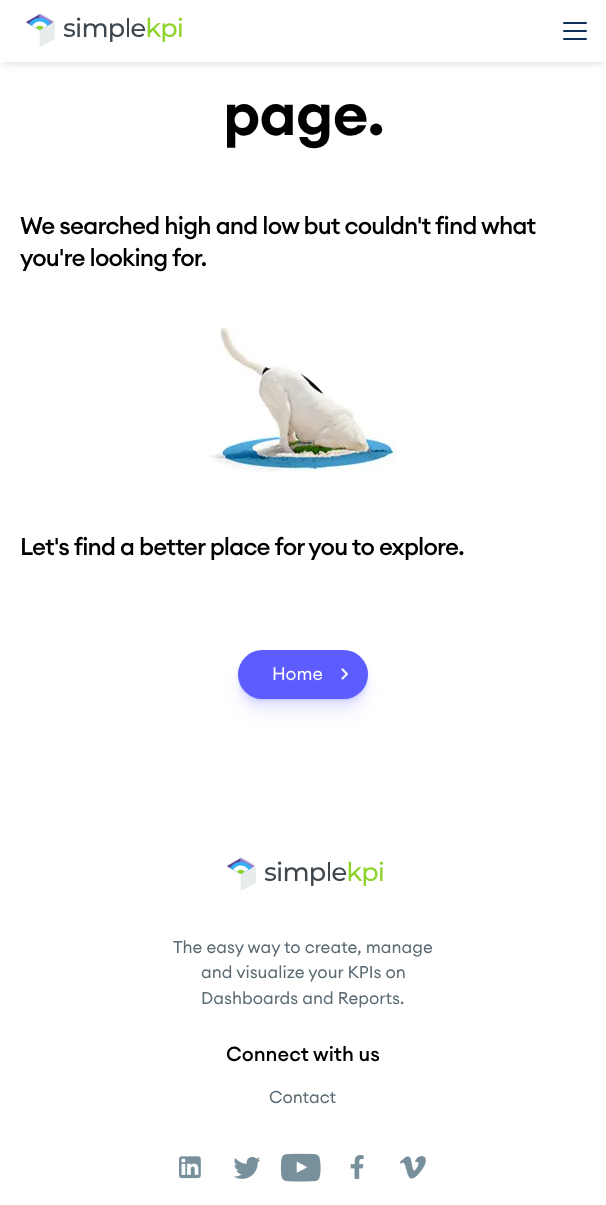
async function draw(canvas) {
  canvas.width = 606;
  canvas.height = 1205;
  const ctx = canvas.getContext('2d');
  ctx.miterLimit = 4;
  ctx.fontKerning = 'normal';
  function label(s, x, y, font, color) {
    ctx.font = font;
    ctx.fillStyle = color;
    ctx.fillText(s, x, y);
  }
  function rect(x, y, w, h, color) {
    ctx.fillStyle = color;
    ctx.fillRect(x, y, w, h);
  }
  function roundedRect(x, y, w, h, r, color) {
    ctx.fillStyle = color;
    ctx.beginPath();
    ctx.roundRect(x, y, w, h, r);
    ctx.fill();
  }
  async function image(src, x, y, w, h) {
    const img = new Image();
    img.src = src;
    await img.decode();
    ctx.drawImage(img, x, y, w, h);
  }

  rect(0, 0, 606, 1205, '#fff');
  ctx.fillStyle = '#0000002e';
  ctx.filter = 'blur(4px)';
  ctx.beginPath();
  ctx.rect(2, 4, 602, 58);
  ctx.fill();
  ctx.filter = 'none';
  rect(0, 0, 606, 62, '#fff');
  await image('assets/img1.png', 26, 13, 156, 34);
  roundedRect(563, 30, 24, 2, 1, '#0f2e57');
  roundedRect(563, 22, 24, 2, 1, '#0f2e57');
  roundedRect(563, 38, 24, 2, 1, '#0f2e57');
  ctx.letterSpacing = '-0.8px';
  label('page.', 223, 135, '600 60.5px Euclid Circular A', '#000');
  label('We searched high and low but couldn\'t find what', 20, 234, '500 24px Euclid Circular A', '#000');
  label('you\'re looking for.', 20, 266, '500 24px Euclid Circular A', '#000');
  await image('assets/img2.png', 209, 327, 188, 146);
  label('Let\'s find a better place for you to explore.', 20, 555, '500 24px Euclid Circular A', '#000');
  ctx.fillStyle = '#5c5cff12';
  ctx.filter = 'blur(8px)';
  ctx.beginPath();
  ctx.roundRect(238, 666, 130, 49, 24.5);
  ctx.fill();
  ctx.filter = 'none';
  ctx.filter = 'blur(4px)';
  ctx.beginPath();
  ctx.roundRect(238, 658, 130, 49, 24.5);
  ctx.fill();
  ctx.filter = 'none';
  ctx.filter = 'blur(2px)';
  ctx.beginPath();
  ctx.roundRect(238, 654, 130, 49, 24.5);
  ctx.fill();
  ctx.filter = 'none';
  ctx.filter = 'blur(1px)';
  ctx.beginPath();
  ctx.roundRect(238, 652, 130, 49, 24.5);
  ctx.fill();
  ctx.filter = 'none';
  ctx.filter = 'blur(0.5px)';
  ctx.beginPath();
  ctx.roundRect(238, 651, 130, 49, 24.5);
  ctx.fill();
  ctx.filter = 'none';
  roundedRect(238, 650, 130, 49, 24.5, '#5c5cff');
  ctx.letterSpacing = '0px';
  label('Home', 272, 680, '18px Euclid Circular A', '#fff');
  await image('assets/img3.png', 341, 668, 7, 12);
  await image('assets/img1.png', 227, 857, 156, 34);
  label('The easy way to create, manage', 173, 953, '17px Euclid Circular A', '#5a6a72');
  label('and visualize your KPIs on', 201, 978, '17px Euclid Circular A', '#5a6a72');
  label('Dashboards and Reports.', 201, 1004, '17px Euclid Circular A', '#5a6a72');
  label('Connect with us', 226, 1061, '500 20px Euclid Circular A', '#000');
  label('Contact', 269, 1103, '17px Euclid Circular A', '#5a6a72');
  await image('assets/img4.png', 179, 1156, 22, 23);
  await image('assets/img5.png', 233, 1156, 28, 23);
  await image('assets/img6.png', 280, 1153, 41, 29);
  await image('assets/img7.png', 350, 1155, 14, 24);
  await image('assets/img8.png', 399, 1156, 27, 23);
}

draw(document.querySelector('canvas'));
